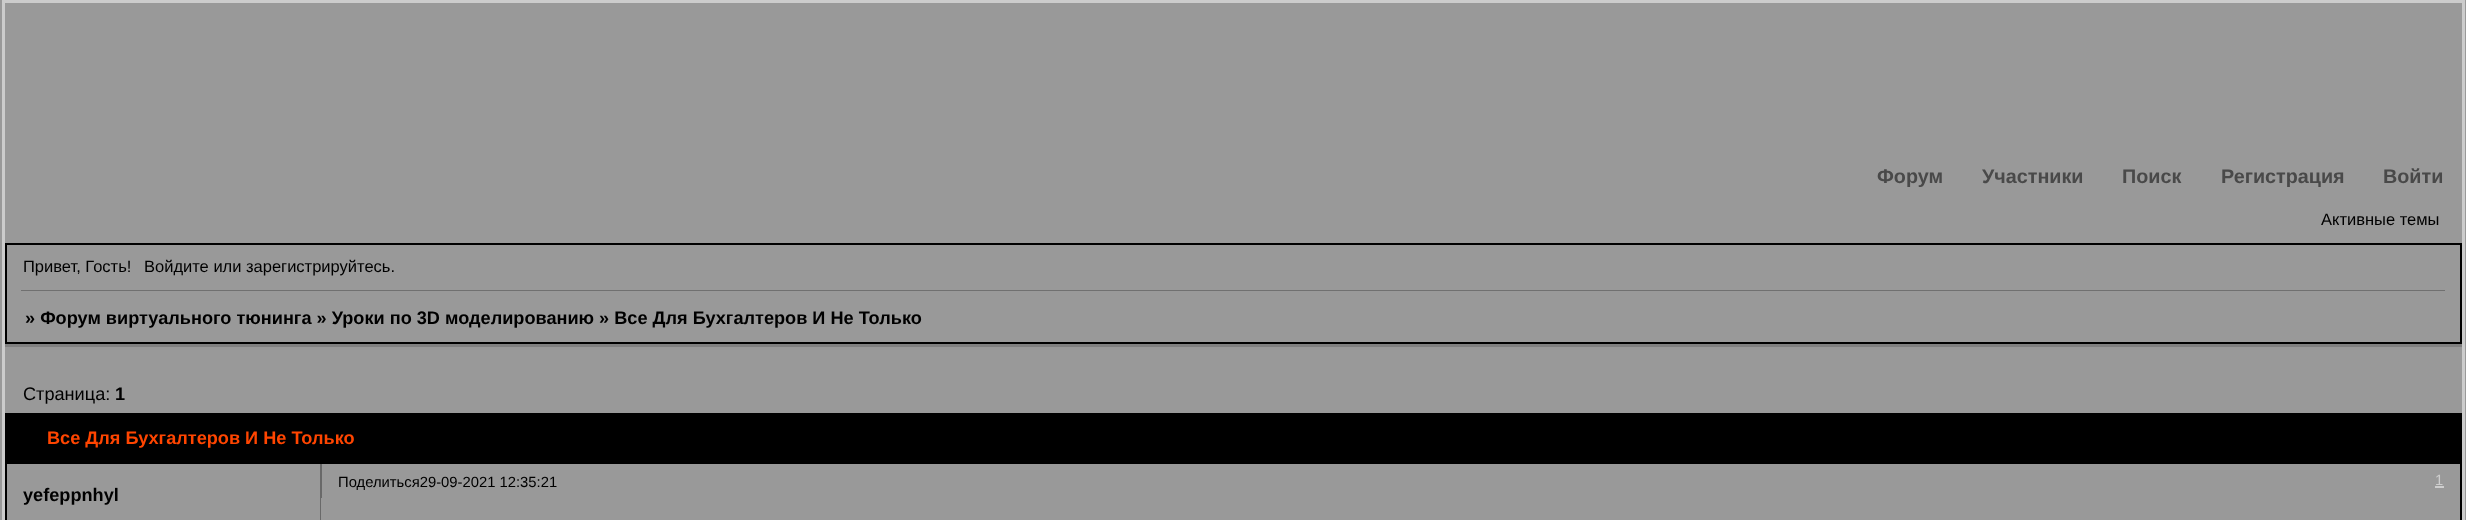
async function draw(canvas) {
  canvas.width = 2466;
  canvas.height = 520;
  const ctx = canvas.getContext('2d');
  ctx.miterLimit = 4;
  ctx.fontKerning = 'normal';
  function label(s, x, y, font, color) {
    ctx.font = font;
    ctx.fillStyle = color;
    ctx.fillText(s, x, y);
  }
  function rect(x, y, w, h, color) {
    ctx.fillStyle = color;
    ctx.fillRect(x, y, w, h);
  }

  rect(0, 0, 2466, 520, '#999');
  ctx.strokeStyle = '#ccc';
  ctx.lineWidth = 3;
  ctx.strokeRect(3.5, 1.5, 2460, 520);
  label('Форум', 1877, 183, 'bold 19.75px Liberation Sans', '#494949');
  label('Участники', 1982, 183, 'bold 19.75px Liberation Sans', '#494949');
  label('Поиск', 2122, 183, 'bold 19.75px Liberation Sans', '#494949');
  label('Регистрация', 2221, 183, 'bold 19.75px Liberation Sans', '#494949');
  label('Войти', 2383, 183, 'bold 19.75px Liberation Sans', '#494949');
  label('Активные темы', 2321, 225, '16.5px Liberation Sans', '#000');
  rect(5, 243, 2457, 2, '#000');
  rect(2460, 243, 2, 101, '#000');
  rect(5, 243, 2, 50, '#000');
  label('Привет, Гость!', 23, 272, '16.5px Liberation Sans', '#000');
  label('Войдите или зарегистрируйтесь.', 144, 272, '16.5px Liberation Sans', '#000');
  rect(21, 290, 2424, 1, '#707070');
  rect(5, 344, 2457, 3, '#808080');
  rect(5, 342, 2457, 2, '#000');
  rect(5, 290, 2, 54, '#000');
  label('» Форум виртуального тюнинга » Уроки по 3D моделированию » Все Для Бухгалтеров И Не Только', 25, 324, 'bold 18.15px Liberation Sans', '#000');
  label('Страница:', 23, 400, '18.15px Liberation Sans', '#000');
  label('1', 115, 400, 'bold 18.15px Liberation Sans', '#000');
  rect(5, 413, 2457, 51, '#000');
  label('Все Для Бухгалтеров И Не Только', 47, 444, 'bold 18.15px Liberation Sans', '#ff4500');
  rect(2460, 462, 2, 58, '#000');
  rect(5, 462, 2, 58, '#000');
  rect(320, 464, 2, 36, '#696969');
  label('Поделиться29-09-2021 12:35:21', 338, 487, '14.8px Liberation Sans', '#000');
  label('1', 2435, 485, '14.8px Liberation Sans', '#cecece');
  rect(2435, 486, 9, 2, '#cecece');
  label('yefeppnhyl', 23, 501, 'bold 18.15px Liberation Sans', '#000');
  rect(320, 498, 1, 22, '#696969');
  rect(321, 498, 1, 2, '#999');
}

draw(document.querySelector('canvas'));
